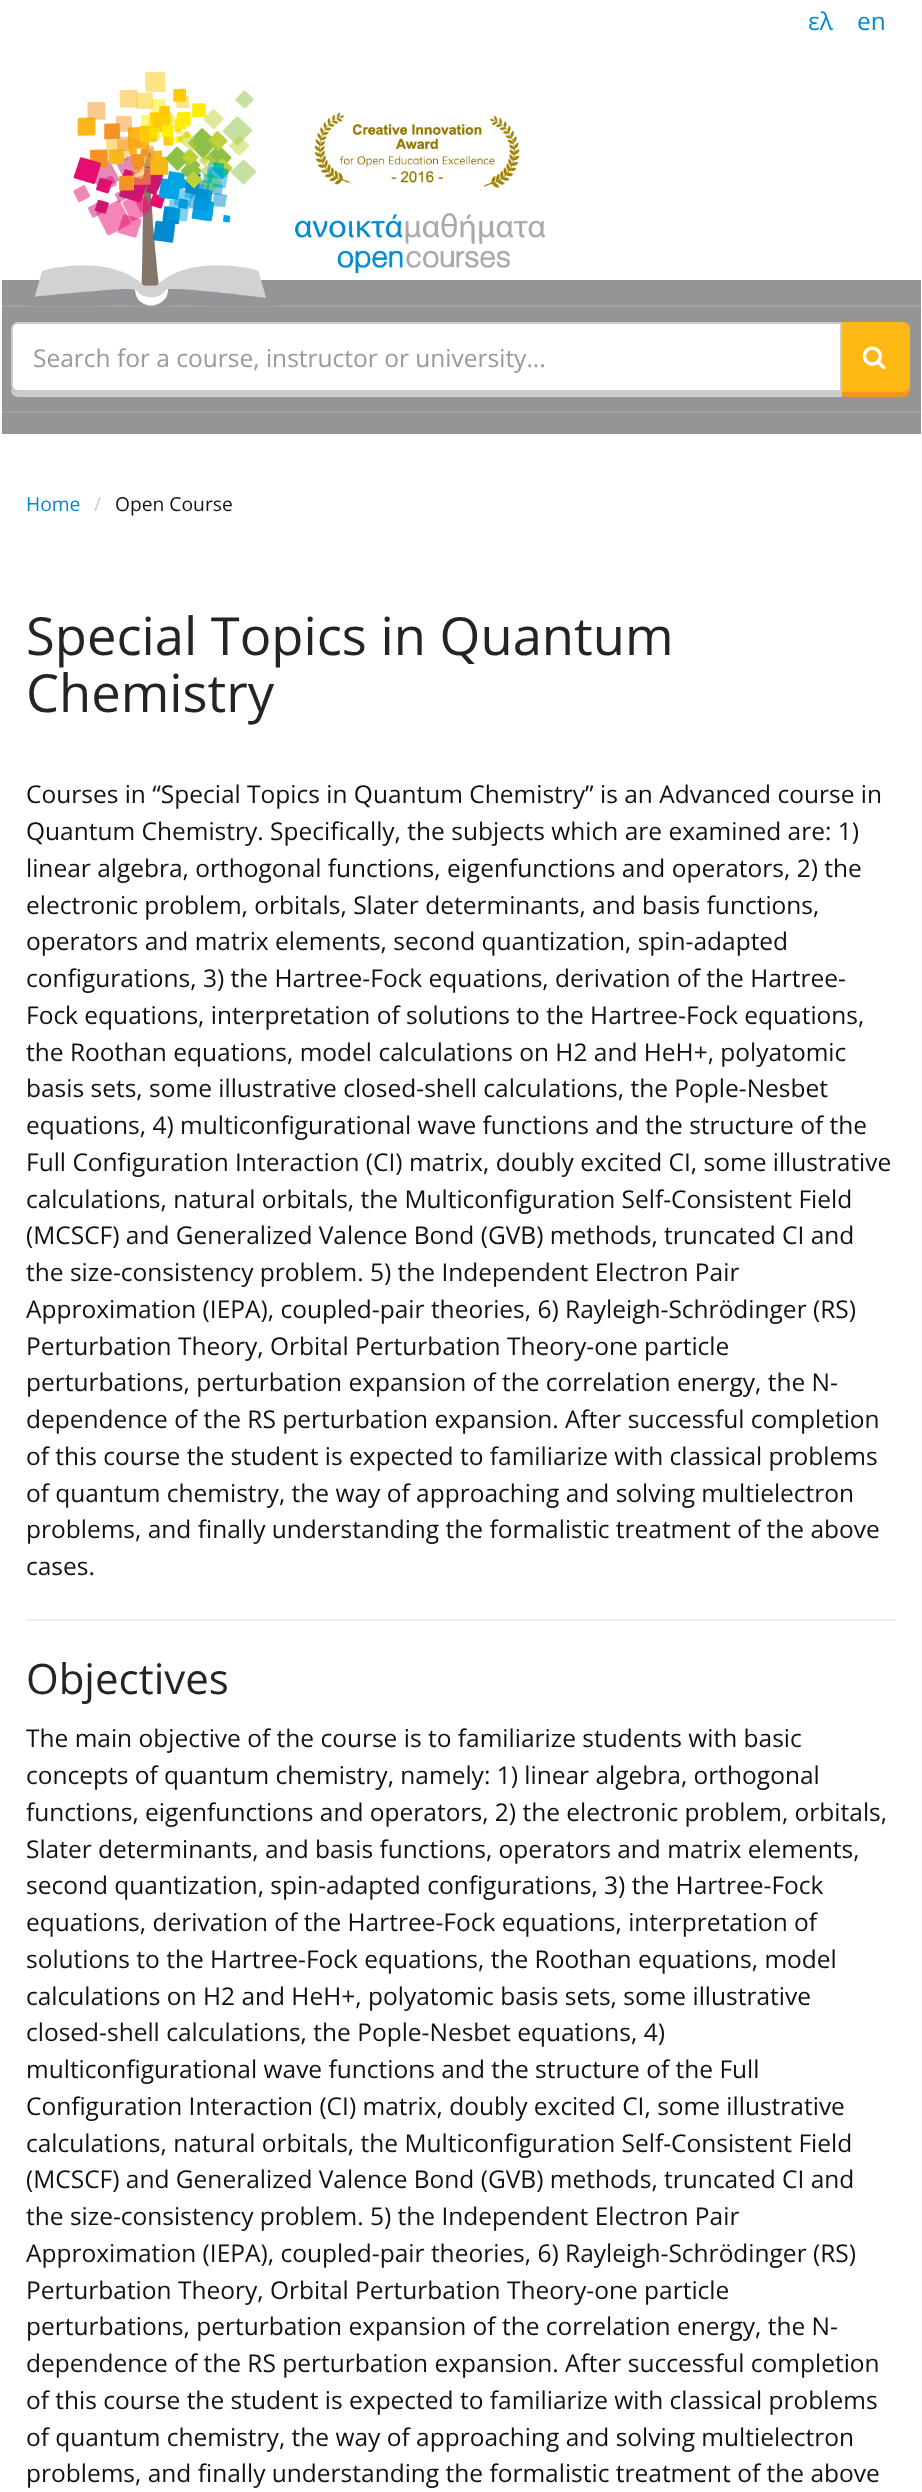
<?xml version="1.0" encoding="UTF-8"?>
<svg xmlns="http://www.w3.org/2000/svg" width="922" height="2492">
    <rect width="100%" height="100%" fill="#FFFFFF"/>
    <text x="808" y="30" font-family="Open Sans" font-size="24.5" fill="#0089D0">ελ</text>
    <text x="857" y="30" font-family="Open Sans" font-size="24.5" fill="#0089D0">en</text>
    <rect x="2" y="280" width="919" height="154" fill="#959595"/>
    <rect x="2" y="305" width="919" height="2" fill="#A0A0A0"/>
    <image x="28" y="72" width="517" height="234" href="img_01.png"/>
    <path d="M -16 305 V 413 H 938 V 411 H -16 Z" fill="#FFFFFF" fill-opacity="0.1"/>
    <path d="M 840 392 V 397 H 903 C 907 397 910 394 910 390 V 385 C 910 389 907 392 903 392 Z" fill="#F7941E"/>
    <path d="M 840 322 H 903 C 907 322 910 325 910 329 V 385 C 910 389 907 392 903 392 H 840 Z" fill="#FDB813"/>
    <path d="M 11 388 V 390 C 11 394 14 397 18 397 H 842 V 327 V 392 H 18 C 15 392 12 390 11 388 Z" fill="#CCCCCC"/>
    <path d="M 18 323 H 841 V 391 H 18 C 14.5 391 12 388.5 12 385 V 329 C 12 325.5 14.5 323 18 323 Z" fill="#FFFFFF" stroke="#CCCCCC" stroke-width="2"/>
    <text x="33" y="367" font-family="Open Sans" font-size="24.5" fill="#999999">Search for a course, instructor or university...</text>
    <image x="862" y="346" width="24" height="24" href="img_02.png"/>
    <text x="26" y="511" font-family="Open Sans" font-size="19.25" fill="#0089D0">Home</text>
    <text x="94" y="511" font-family="Open Sans" font-size="19.25" fill="#CCCCCC">/</text>
    <text x="115" y="511" font-family="Open Sans" font-size="19.25" fill="#111111">Open Course</text>
    <text font-family="Open Sans" font-size="52.5" fill="#242424">
        <tspan x="26" y="655">Special Topics in Quantum</tspan>
        <tspan x="26" y="712">Chemistry</tspan>
    </text>
    <text font-family="Open Sans" font-size="24.5" fill="#111111">
        <tspan x="26" y="803">Courses in “Special Topics in Quantum Chemistry” is an Advanced course in</tspan>
        <tspan x="26" y="840">Quantum Chemistry. Specifically, the subjects which are examined are: 1)</tspan>
        <tspan x="26" y="877">linear algebra, orthogonal functions, eigenfunctions and operators, 2) the</tspan>
        <tspan x="26" y="914">electronic problem, orbitals, Slater determinants, and basis functions,</tspan>
        <tspan x="26" y="950">operators and matrix elements, second quantization, spin-adapted</tspan>
        <tspan x="26" y="987">configurations, 3) the Hartree-Fock equations, derivation of the Hartree-</tspan>
        <tspan x="26" y="1024">Fock equations, interpretation of solutions to the Hartree-Fock equations,</tspan>
        <tspan x="26" y="1061">the Roothan equations, model calculations on H2 and HeH+, polyatomic</tspan>
        <tspan x="26" y="1097">basis sets, some illustrative closed-shell calculations, the Pople-Nesbet</tspan>
        <tspan x="26" y="1134">equations, 4) multiconfigurational wave functions and the structure of the</tspan>
        <tspan x="26" y="1171">Full Configuration Interaction (CI) matrix, doubly excited CI, some illustrative</tspan>
        <tspan x="26" y="1208">calculations, natural orbitals, the Multiconfiguration Self-Consistent Field</tspan>
        <tspan x="26" y="1244">(MCSCF) and Generalized Valence Bond (GVB) methods, truncated CI and</tspan>
        <tspan x="26" y="1281">the size-consistency problem. 5) the Independent Electron Pair</tspan>
        <tspan x="26" y="1318">Approximation (IEPA), coupled-pair theories, 6) Rayleigh-Schrödinger (RS)</tspan>
        <tspan x="26" y="1355">Perturbation Theory, Orbital Perturbation Theory-one particle</tspan>
        <tspan x="26" y="1391">perturbations, perturbation expansion of the correlation energy, the N-</tspan>
        <tspan x="26" y="1428">dependence of the RS perturbation expansion. After successful completion</tspan>
        <tspan x="26" y="1465">of this course the student is expected to familiarize with classical problems</tspan>
        <tspan x="26" y="1502">of quantum chemistry, the way of approaching and solving multielectron</tspan>
        <tspan x="26" y="1538">problems, and finally understanding the formalistic treatment of the above</tspan>
        <tspan x="26" y="1575">cases.</tspan>
    </text>
    <rect x="26" y="1619" width="870" height="2" fill="#EEEEEE"/>
    <text x="26" y="1694" font-family="Open Sans" font-size="42" fill="#242424">Objectives</text>
    <text font-family="Open Sans" font-size="24.5" fill="#111111">
        <tspan x="26" y="1747">The main objective of the course is to familiarize students with basic</tspan>
        <tspan x="26" y="1784">concepts of quantum chemistry, namely: 1) linear algebra, orthogonal</tspan>
        <tspan x="26" y="1821">functions, eigenfunctions and operators, 2) the electronic problem, orbitals,</tspan>
        <tspan x="26" y="1858">Slater determinants, and basis functions, operators and matrix elements,</tspan>
        <tspan x="26" y="1894">second quantization, spin-adapted configurations, 3) the Hartree-Fock</tspan>
        <tspan x="26" y="1931">equations, derivation of the Hartree-Fock equations, interpretation of</tspan>
        <tspan x="26" y="1968">solutions to the Hartree-Fock equations, the Roothan equations, model</tspan>
        <tspan x="26" y="2005">calculations on H2 and HeH+, polyatomic basis sets, some illustrative</tspan>
        <tspan x="26" y="2041">closed-shell calculations, the Pople-Nesbet equations, 4)</tspan>
        <tspan x="26" y="2078">multiconfigurational wave functions and the structure of the Full</tspan>
        <tspan x="26" y="2115">Configuration Interaction (CI) matrix, doubly excited CI, some illustrative</tspan>
        <tspan x="26" y="2152">calculations, natural orbitals, the Multiconfiguration Self-Consistent Field</tspan>
        <tspan x="26" y="2188">(MCSCF) and Generalized Valence Bond (GVB) methods, truncated CI and</tspan>
        <tspan x="26" y="2225">the size-consistency problem. 5) the Independent Electron Pair</tspan>
        <tspan x="26" y="2262">Approximation (IEPA), coupled-pair theories, 6) Rayleigh-Schrödinger (RS)</tspan>
        <tspan x="26" y="2299">Perturbation Theory, Orbital Perturbation Theory-one particle</tspan>
        <tspan x="26" y="2335">perturbations, perturbation expansion of the correlation energy, the N-</tspan>
        <tspan x="26" y="2372">dependence of the RS perturbation expansion. After successful completion</tspan>
        <tspan x="26" y="2409">of this course the student is expected to familiarize with classical problems</tspan>
        <tspan x="26" y="2446">of quantum chemistry, the way of approaching and solving multielectron</tspan>
        <tspan x="26" y="2482">problems, and finally understanding the formalistic treatment of the above</tspan>
    </text>
</svg>
